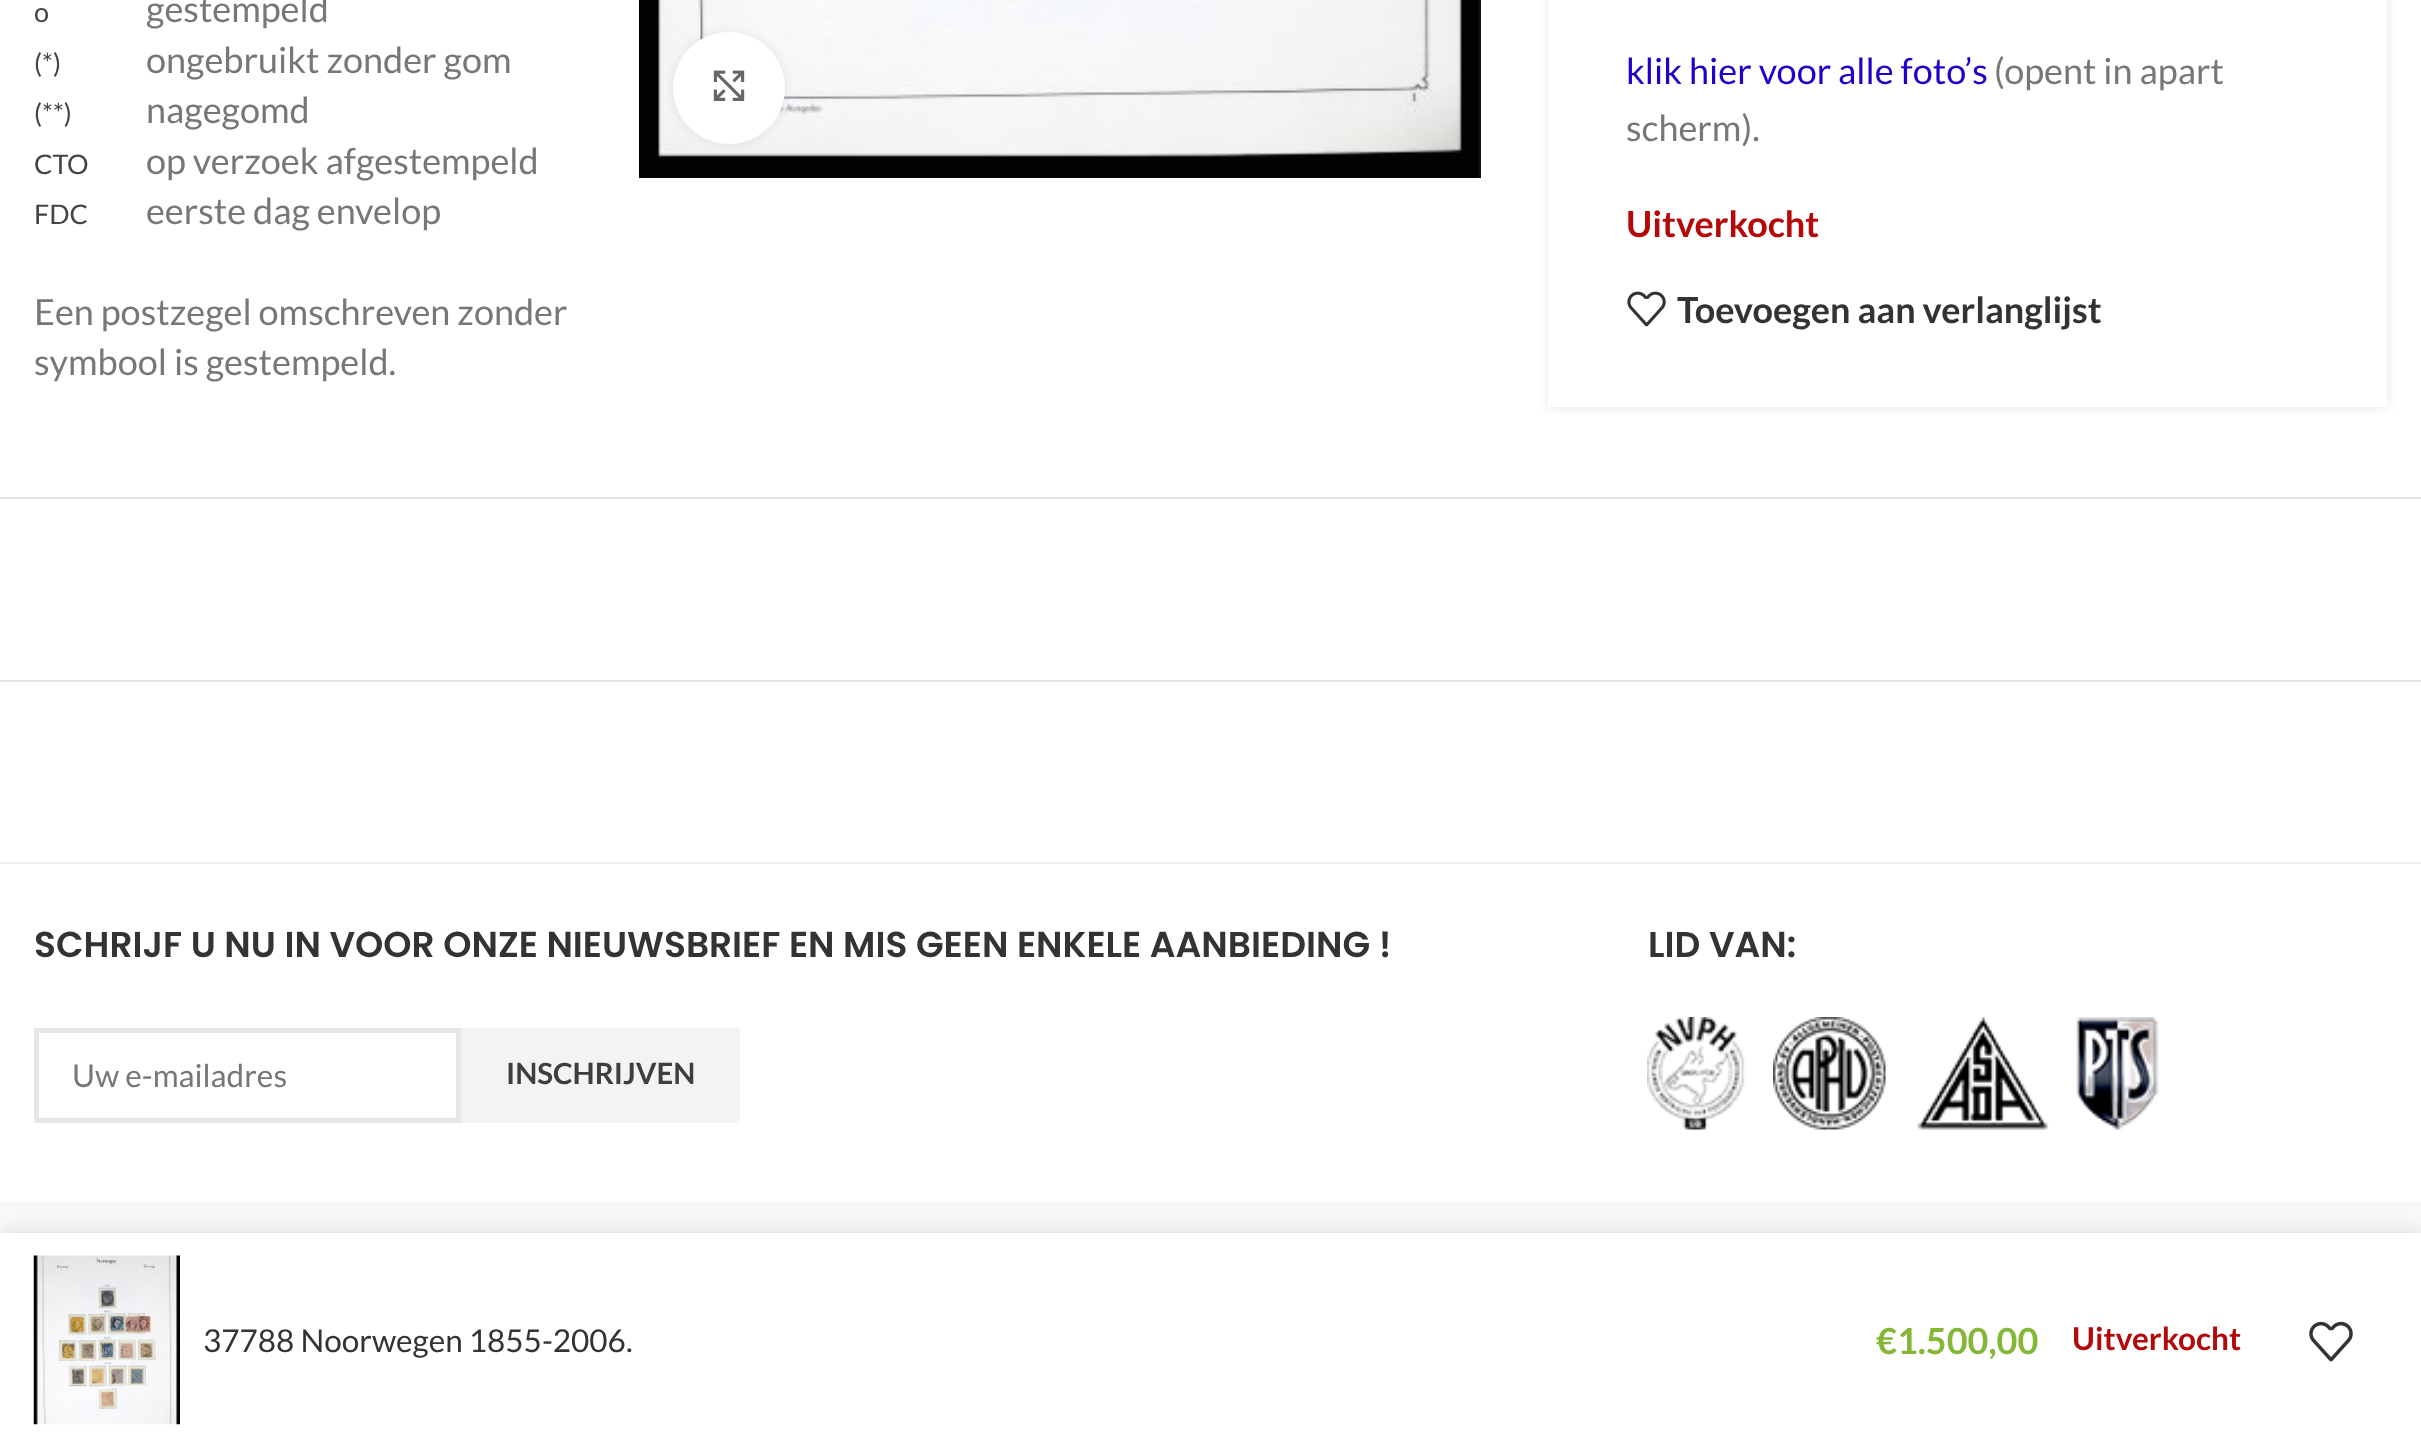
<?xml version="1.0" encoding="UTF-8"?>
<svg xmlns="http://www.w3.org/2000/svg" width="2421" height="1445">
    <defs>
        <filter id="blur1" x="-50%" y="-200%" width="200%" height="500%"><feGaussianBlur stdDeviation="5.5"/></filter>
        <clipPath id="clip1"><path d="M 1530 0 H 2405 V 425 H 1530 Z M 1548 -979 H 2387 V 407 H 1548 Z" clip-rule="evenodd"/></clipPath>
        <filter id="blur2" x="-50%" y="-200%" width="200%" height="500%"><feGaussianBlur stdDeviation="10"/></filter>
    </defs>
    <rect width="100%" height="100%" fill="#FFFFFF"/>
    <text x="34" y="22" font-family="Lato" font-size="27" fill="#444444">o</text>
    <text x="146" y="22" font-family="Lato" font-size="36" fill="#777777">gestempeld</text>
    <text x="34" y="73" font-family="Lato" font-size="27" fill="#444444">(*)</text>
    <text x="146" y="73" font-family="Lato" font-size="36" fill="#777777">ongebruikt zonder gom</text>
    <text x="34" y="123" font-family="Lato" font-size="27" fill="#444444">(**)</text>
    <text x="146" y="123" font-family="Lato" font-size="36" fill="#777777">nagegomd</text>
    <text x="34" y="174" font-family="Lato" font-size="27" fill="#444444">CTO</text>
    <text x="146" y="174" font-family="Lato" font-size="36" fill="#777777">op verzoek afgestempeld</text>
    <text x="34" y="224" font-family="Lato" font-size="27" fill="#444444">FDC</text>
    <text x="146" y="224" font-family="Lato" font-size="36" fill="#777777">eerste dag envelop</text>
    <text font-family="Lato" font-size="36" fill="#777777">
        <tspan x="34" y="325">Een postzegel omschreven zonder</tspan>
        <tspan x="34" y="375">symbool is gestempeld.</tspan>
    </text>
    <image x="639" y="0" width="842" height="178" href="img_01.png"/>
    <rect x="673" y="32" width="112" height="112" rx="56" fill="#000000" fill-opacity="0.08" filter="url(#blur1)"/>
    <circle cx="729" cy="88" r="56" fill="#FFFFFF"/>
    <image x="713" y="70" width="32" height="31" href="img_02.png"/>
    <g clip-path="url(#clip1)">
        <rect x="1548" y="-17" width="839" height="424" fill="#000000" fill-opacity="0.1" filter="url(#blur1)"/>
    </g>
    <text x="1626" y="84" font-family="Lato" font-size="36" fill="#2200CC">klik hier voor alle foto’s</text>
    <text x="1994" y="84" font-family="Lato" font-size="36" fill="#777777">(opent in apart</text>
    <text x="1626" y="141" font-family="Lato" font-size="36" fill="#777777">scherm).</text>
    <text x="1626" y="237" font-family="Lato" font-size="36" font-weight="700" fill="#B50808">Uitverkocht</text>
    <image x="1627" y="291" width="39" height="36" href="img_03.png"/>
    <text x="1677" y="323" font-family="Lato" font-size="36" font-weight="700" fill="#333333">Toevoegen aan verlanglijst</text>
    <rect x="0" y="497" width="2421" height="2" fill="#E4E4E4"/>
    <rect x="0" y="680" width="2421" height="2" fill="#E4E4E4"/>
    <rect x="0" y="862" width="2421" height="2" fill="#EDEDED"/>
    <text x="34" y="957" font-family="Poppins" font-size="36" font-weight="600" fill="#333333">SCHRIJF U NU IN VOOR ONZE NIEUWSBRIEF EN MIS GEEN ENKELE AANBIEDING !</text>
    <rect x="36.5" y="1030.5" width="422" height="90" fill="none" stroke="#E6E6E6" stroke-width="5"/>
    <text x="72" y="1087" font-family="Lato" font-size="31.5" fill="#777777">Uw e-mailadres</text>
    <rect x="461" y="1028" width="279" height="95" fill="#F3F3F3"/>
    <text x="506" y="1084" font-family="Lato" font-size="29.25" font-weight="700" fill="#3E3E3E">INSCHRIJVEN</text>
    <text x="1648" y="957" font-family="Poppins" font-size="36" font-weight="600" fill="#333333">LID VAN:</text>
    <image x="1647" y="1017" width="98" height="113" href="img_04.png"/>
    <image x="1773" y="1017" width="114" height="113" href="img_05.png"/>
    <image x="1917" y="1017" width="132" height="113" href="img_06.png"/>
    <image x="2076" y="1017" width="83" height="113" href="img_07.png"/>
    <rect x="0" y="1202" width="2421" height="31" fill="#F8F8F8"/>
    <rect x="0" y="1233" width="2421" height="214" fill="#000000" fill-opacity="0.12" filter="url(#blur2)"/>
    <rect x="0" y="1233" width="2421" height="212" fill="#FFFFFF"/>
    <image x="33" y="1255" width="147" height="170" href="img_08.png"/>
    <text x="203" y="1352" font-family="Lato" font-size="31.5" fill="#333333">37788 Noorwegen 1855-2006.</text>
    <text x="1876" y="1354" font-family="Lato" font-size="36" font-weight="700" fill="#83B735">€1.500,00</text>
    <text x="2072" y="1350" font-family="Lato" font-size="31.5" font-weight="700" fill="#B50808">Uitverkocht</text>
    <image x="2309" y="1321" width="44" height="41" href="img_09.png"/>
</svg>
